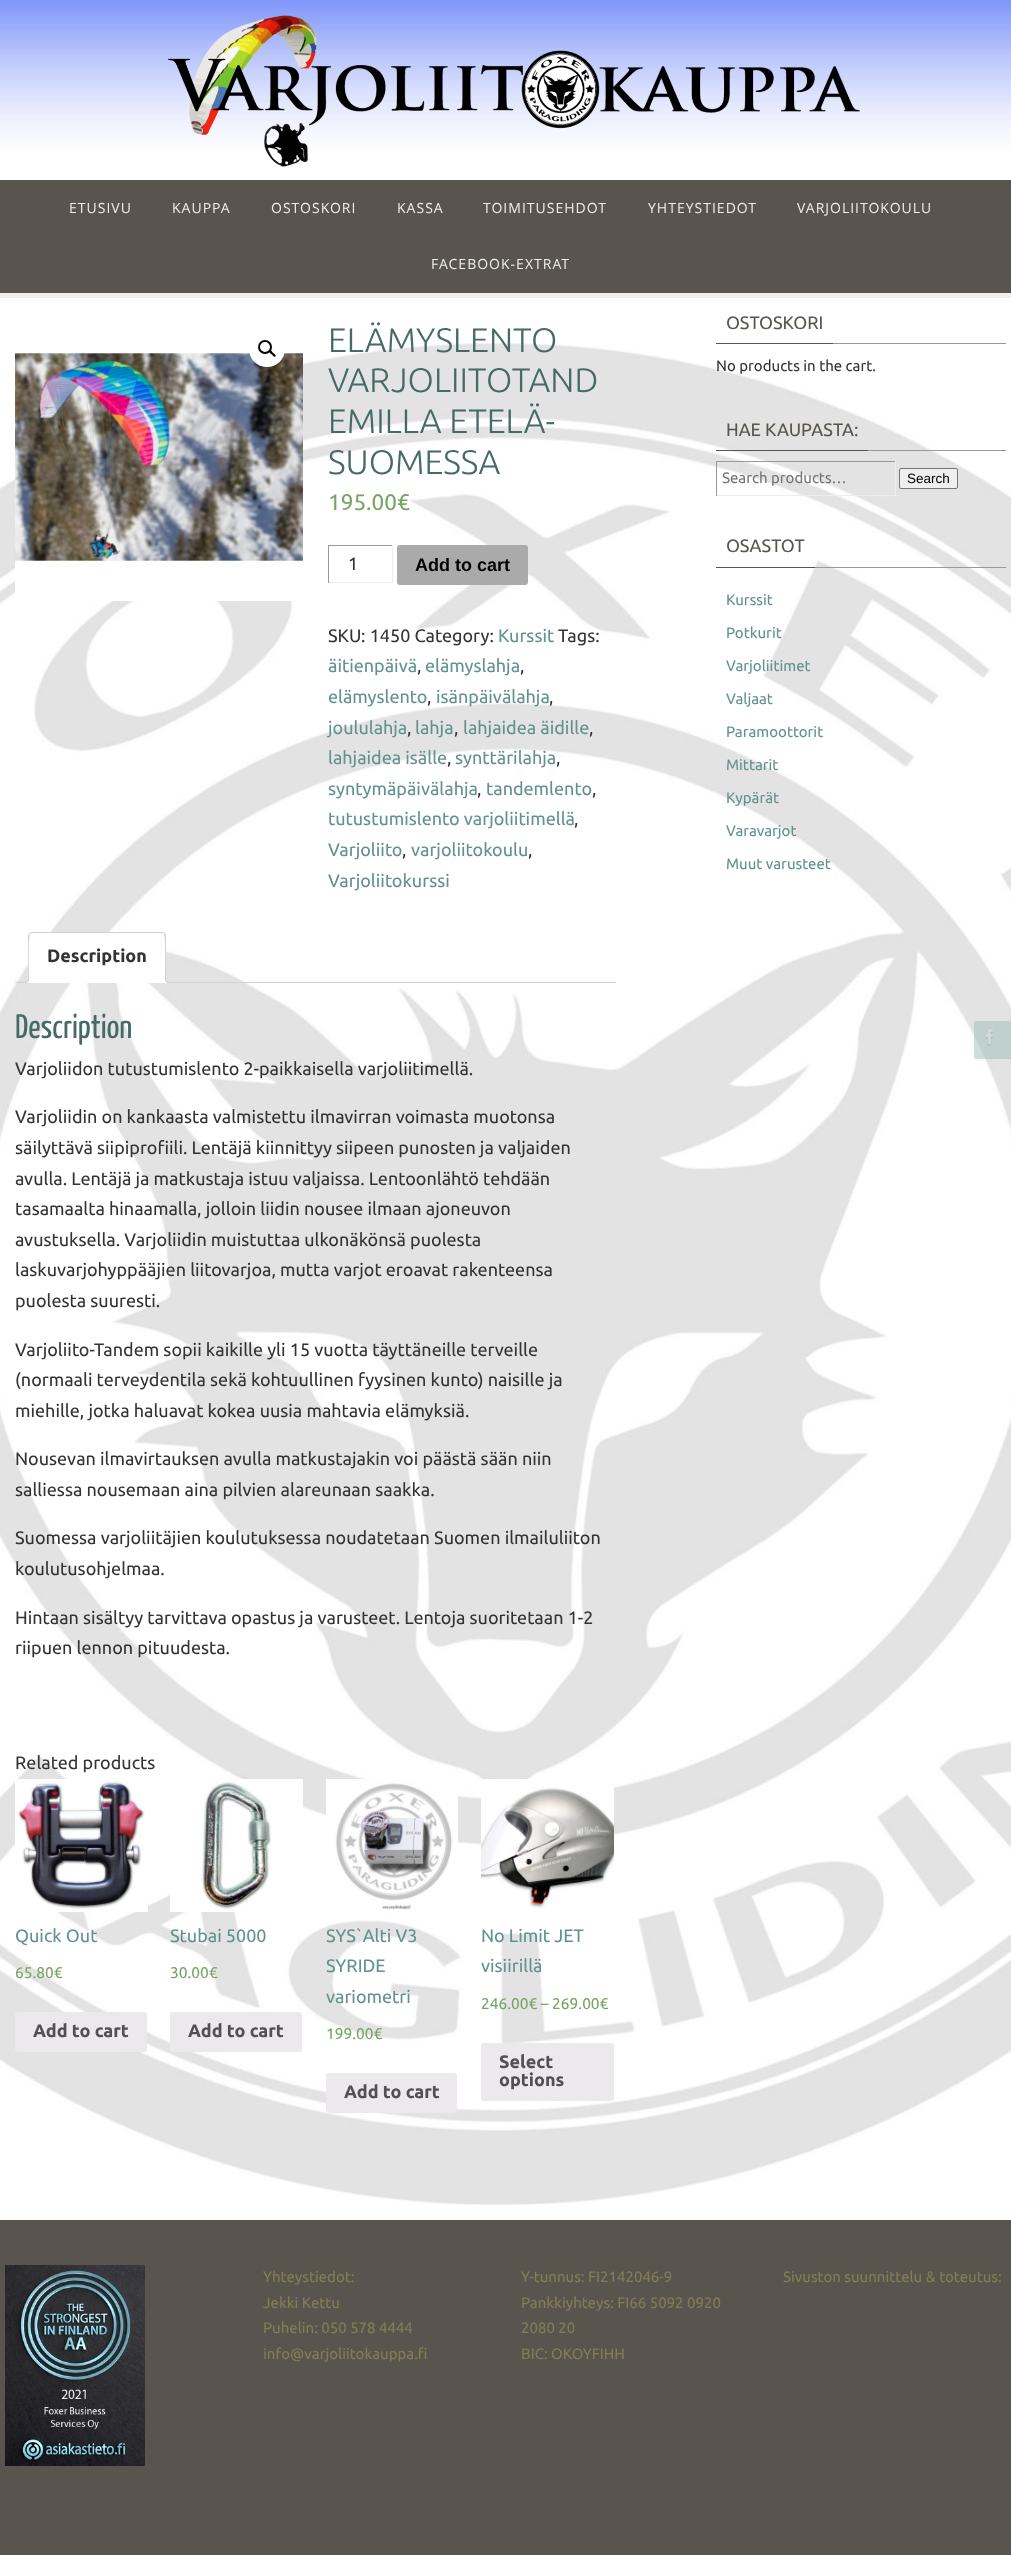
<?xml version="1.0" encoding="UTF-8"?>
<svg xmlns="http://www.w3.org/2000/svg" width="1011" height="2555">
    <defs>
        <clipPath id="clip1"><rect x="15" y="932" width="601" height="51"/></clipPath>
    </defs>
    <rect width="100%" height="100%" fill="#EFF0EC"/>
    <image x="0" y="0" width="1011" height="180" href="img_01.png"/>
    <rect x="0" y="180" width="1011" height="113" fill="#59554E"/>
    <text x="69" y="213" font-family="Open Sans" font-size="14" letter-spacing="1" fill="#EEEEEE">ETUSIVU</text>
    <text x="172" y="213" font-family="Open Sans" font-size="14" letter-spacing="1" fill="#EEEEEE">KAUPPA</text>
    <text x="271" y="213" font-family="Open Sans" font-size="14" letter-spacing="1" fill="#EEEEEE">OSTOSKORI</text>
    <text x="397" y="213" font-family="Open Sans" font-size="14" letter-spacing="1" fill="#EEEEEE">KASSA</text>
    <text x="483" y="213" font-family="Open Sans" font-size="14" letter-spacing="1" fill="#EEEEEE">TOIMITUSEHDOT</text>
    <text x="648" y="213" font-family="Open Sans" font-size="14" letter-spacing="1" fill="#EEEEEE">YHTEYSTIEDOT</text>
    <text x="797" y="213" font-family="Open Sans" font-size="14" letter-spacing="1" fill="#EEEEEE">VARJOLIITOKOULU</text>
    <text x="431" y="269" font-family="Open Sans" font-size="14" letter-spacing="1" fill="#EEEEEE">FACEBOOK-EXTRAT</text>
    <rect x="0" y="298" width="1011" height="1922" fill="#FFFFFF"/>
    <image x="0" y="343" width="1011" height="1862" href="img_02.png"/>
    <image x="15" y="352" width="288" height="249" href="img_03.png"/>
    <circle cx="267" cy="349" r="18" fill="#FFFFFF"/>
    <circle cx="265" cy="347" r="6" fill="none" stroke="#000000" stroke-width="2"/>
    <path d="M 269.5 351 C 271 349.5 272.5 352.5 273 353 C 274 353.5 276.5 355.5 275.5 356.5 C 274 357.5 272.5 355 272 354.5 C 271 354 268.5 352 269.5 351 Z" fill="#000000"/>
    <text font-family="Ubuntu" font-size="34" font-weight="300" fill="#466A66">
        <tspan x="328" y="352">ELÄMYSLENTO</tspan>
        <tspan x="328" y="392">VARJOLIITOTAND</tspan>
        <tspan x="328" y="433">EMILLA ETELÄ-</tspan>
        <tspan x="328" y="474">SUOMESSA</tspan>
    </text>
    <text x="328" y="510" font-family="Ubuntu" font-size="22.5" fill="#77A464">195.00€</text>
    <rect x="328" y="545" width="65" height="1" fill="#999999"/>
    <rect x="392" y="545" width="1" height="38" fill="#EEEEEE"/>
    <rect x="328" y="582" width="65" height="1" fill="#EEEEEE"/>
    <rect x="328" y="545" width="1" height="38" fill="#999999"/>
    <text x="348" y="570" font-family="Ubuntu" font-size="18" fill="#333333">1</text>
    <rect x="397" y="545" width="131" height="40" rx="3" fill="#AAAAAA"/>
    <text x="415" y="571" font-family="Liberation Sans" font-size="18" font-weight="700" fill="#000000">Add to cart</text>
    <text x="328" y="642" font-family="Ubuntu" font-size="18" fill="#333333">SKU: 1450 Category:</text>
    <text x="498" y="642" font-family="Ubuntu" font-size="18" fill="#61928C">Kurssit</text>
    <text x="558" y="642" font-family="Ubuntu" font-size="18" fill="#333333">Tags:</text>
    <text x="328" y="672" font-family="Ubuntu" font-size="18" fill="#61928C">äitienpäivä</text>
    <text x="417" y="672" font-family="Ubuntu" font-size="18" fill="#333333">,</text>
    <text x="425" y="672" font-family="Ubuntu" font-size="18" fill="#61928C">elämyslahja</text>
    <text x="520" y="672" font-family="Ubuntu" font-size="18" fill="#333333">,</text>
    <text x="328" y="703" font-family="Ubuntu" font-size="18" fill="#61928C">elämyslento</text>
    <text x="427" y="703" font-family="Ubuntu" font-size="18" fill="#333333">,</text>
    <text x="436" y="703" font-family="Ubuntu" font-size="18" fill="#61928C">isänpäivälahja</text>
    <text x="549" y="703" font-family="Ubuntu" font-size="18" fill="#333333">,</text>
    <text x="328" y="734" font-family="Ubuntu" font-size="18" fill="#61928C">joululahja</text>
    <text x="407" y="734" font-family="Ubuntu" font-size="18" fill="#333333">,</text>
    <text x="415" y="734" font-family="Ubuntu" font-size="18" fill="#61928C">lahja</text>
    <text x="454" y="734" font-family="Ubuntu" font-size="18" fill="#333333">,</text>
    <text x="463" y="734" font-family="Ubuntu" font-size="18" fill="#61928C">lahjaidea äidille</text>
    <text x="589" y="734" font-family="Ubuntu" font-size="18" fill="#333333">,</text>
    <text x="328" y="764" font-family="Ubuntu" font-size="18" fill="#61928C">lahjaidea isälle</text>
    <text x="447" y="764" font-family="Ubuntu" font-size="18" fill="#333333">,</text>
    <text x="455" y="764" font-family="Ubuntu" font-size="18" fill="#61928C">synttärilahja</text>
    <text x="556" y="764" font-family="Ubuntu" font-size="18" fill="#333333">,</text>
    <text x="328" y="795" font-family="Ubuntu" font-size="18" fill="#61928C">syntymäpäivälahja</text>
    <text x="477" y="795" font-family="Ubuntu" font-size="18" fill="#333333">,</text>
    <text x="486" y="795" font-family="Ubuntu" font-size="18" fill="#61928C">tandemlento</text>
    <text x="592" y="795" font-family="Ubuntu" font-size="18" fill="#333333">,</text>
    <text x="328" y="825" font-family="Ubuntu" font-size="18" fill="#61928C">tutustumislento varjoliitimellä</text>
    <text x="574" y="825" font-family="Ubuntu" font-size="18" fill="#333333">,</text>
    <text x="328" y="856" font-family="Ubuntu" font-size="18" fill="#61928C">Varjoliito</text>
    <text x="402" y="856" font-family="Ubuntu" font-size="18" fill="#333333">,</text>
    <text x="411" y="856" font-family="Ubuntu" font-size="18" fill="#61928C">varjoliitokoulu</text>
    <text x="528" y="856" font-family="Ubuntu" font-size="18" fill="#333333">,</text>
    <text x="328" y="887" font-family="Ubuntu" font-size="18" fill="#61928C">Varjoliitokurssi</text>
    <rect x="15" y="982" width="601" height="1" fill="#D3CED2"/>
    <path d="M 32 932 H 162 C 164 932 166 934 166 936 V 983 H 28 V 936 C 28 934 30 932 32 932 Z" fill="#FFFFFF"/>
    <path d="M 32 932 L 29 933 L 30 934 L 32 933 H 162 L 164 934 L 165 933 L 162 932 Z" fill="#D3CED2"/>
    <path d="M 166 983 V 935 L 165 933 L 164 934 C 166 936 165 976 165 982 Z" fill="#D3CED2"/>
    <path d="M 166 983 L 165 982 H 29 L 28 983 Z" fill="#FFFFFF"/>
    <path d="M 28 983 L 29 982 C 29 976 28 936 30 934 L 29 933 L 28 936 Z" fill="#D3CED2"/>
    <text x="47" y="962" font-family="Ubuntu" font-size="18" font-weight="700" fill="#333333">Description</text>
    <g clip-path="url(#clip1)">
        <path d="M 26 983 V 985 C 29.5 985 31 983.5 31 980 H 29 C 28.5 981.5 27.5 982.5 26 983 Z" fill="#FFFFFF"/>
    </g>
    <path d="M 24 978 H 29 C 29 981.5 27.5 983 24 983 Z M 24 978 H 28 C 28 981 27 982 24 982 Z" fill="#D3CED2" fill-rule="evenodd"/>
    <g clip-path="url(#clip1)">
        <path d="M 163 980 C 163 983.5 164.5 985 168 985 V 983 C 166.5 982.5 165.5 981.5 165 980 Z" fill="#FFFFFF"/>
    </g>
    <path d="M 165 978 H 170 V 983 C 167.5 983 165 982 165 979 Z M 166 978 H 170 V 982 C 168 982 166 981.5 166 979 Z" fill="#D3CED2" fill-rule="evenodd"/>
    <text x="15" y="1038" font-family="Yanone Kaffeesatz" font-size="34" fill="#466A66">Description</text>
    <text x="15" y="1075" font-family="Ubuntu" font-size="18" fill="#333333">Varjoliidon tutustumislento 2-paikkaisella varjoliitimellä.</text>
    <text font-family="Ubuntu" font-size="18" fill="#333333">
        <tspan x="15" y="1123">Varjoliidin on kankaasta valmistettu ilmavirran voimasta muotonsa</tspan>
        <tspan x="15" y="1154">säilyttävä siipiprofiili. Lentäjä kiinnittyy siipeen punosten ja valjaiden</tspan>
        <tspan x="15" y="1185">avulla. Lentäjä ja matkustaja istuu valjaissa. Lentoonlähtö tehdään</tspan>
        <tspan x="15" y="1215">tasamaalta hinaamalla, jolloin liidin nousee ilmaan ajoneuvon</tspan>
        <tspan x="15" y="1246">avustuksella. Varjoliidin muistuttaa ulkonäkönsä puolesta</tspan>
        <tspan x="15" y="1276">laskuvarjohyppääjien liitovarjoa, mutta varjot eroavat rakenteensa</tspan>
        <tspan x="15" y="1307">puolesta suuresti.</tspan>
    </text>
    <text font-family="Ubuntu" font-size="18" fill="#333333">
        <tspan x="15" y="1356">Varjoliito-Tandem sopii kaikille yli 15 vuotta täyttäneille terveille</tspan>
        <tspan x="15" y="1386">(normaali terveydentila sekä kohtuullinen fyysinen kunto) naisille ja</tspan>
        <tspan x="15" y="1417">miehille, jotka haluavat kokea uusia mahtavia elämyksiä.</tspan>
    </text>
    <text font-family="Ubuntu" font-size="18" fill="#333333">
        <tspan x="15" y="1465">Nousevan ilmavirtauksen avulla matkustajakin voi päästä sään niin</tspan>
        <tspan x="15" y="1496">salliessa nousemaan aina pilvien alareunaan saakka.</tspan>
    </text>
    <text font-family="Ubuntu" font-size="18" fill="#333333">
        <tspan x="15" y="1544">Suomessa varjoliitäjien koulutuksessa noudatetaan Suomen ilmailuliiton</tspan>
        <tspan x="15" y="1575">koulutusohjelmaa.</tspan>
    </text>
    <text font-family="Ubuntu" font-size="18" fill="#333333">
        <tspan x="15" y="1624">Hintaan sisältyy tarvittava opastus ja varusteet. Lentoja suoritetaan 1-2</tspan>
        <tspan x="15" y="1654">riipuen lennon pituudesta.</tspan>
    </text>
    <text x="15" y="1769" font-family="Ubuntu" font-size="18" fill="#333333">Related products</text>
    <image x="15" y="1779" width="133" height="133" href="img_04.png"/>
    <text x="15" y="1942" font-family="Ubuntu" font-size="18" fill="#61928C">Quick Out</text>
    <text x="15" y="1978" font-family="Ubuntu" font-size="15.5" fill="#77A464">65.80€</text>
    <rect x="15" y="2012" width="132" height="40" rx="3" fill="#EBE9EB"/>
    <text x="33" y="2037" font-family="Ubuntu" font-size="18" font-weight="700" fill="#515151">Add to cart</text>
    <image x="170" y="1779" width="133" height="133" href="img_05.png"/>
    <text x="170" y="1942" font-family="Ubuntu" font-size="18" fill="#61928C">Stubai 5000</text>
    <text x="170" y="1978" font-family="Ubuntu" font-size="15.5" fill="#77A464">30.00€</text>
    <rect x="170" y="2012" width="132" height="40" rx="3" fill="#EBE9EB"/>
    <text x="188" y="2037" font-family="Ubuntu" font-size="18" font-weight="700" fill="#515151">Add to cart</text>
    <image x="326" y="1779" width="132" height="131" href="img_06.png"/>
    <text font-family="Ubuntu" font-size="18" fill="#61928C">
        <tspan x="326" y="1942">SYS`Alti V3</tspan>
        <tspan x="326" y="1972">SYRIDE</tspan>
        <tspan x="326" y="2003">variometri</tspan>
    </text>
    <text x="326" y="2039" font-family="Ubuntu" font-size="15.5" fill="#77A464">199.00€</text>
    <rect x="326" y="2073" width="131" height="40" rx="3" fill="#EBE9EB"/>
    <text x="344" y="2098" font-family="Ubuntu" font-size="18" font-weight="700" fill="#515151">Add to cart</text>
    <image x="481" y="1779" width="133" height="129" href="img_07.png"/>
    <text font-family="Ubuntu" font-size="18" fill="#61928C">
        <tspan x="481" y="1942">No Limit JET</tspan>
        <tspan x="481" y="1972">visiirillä</tspan>
    </text>
    <text x="481" y="2009" font-family="Ubuntu" font-size="15.5" fill="#77A464">246.00€ – 269.00€</text>
    <rect x="481" y="2043" width="133" height="58" rx="3" fill="#EBE9EB"/>
    <text font-family="Ubuntu" font-size="18" font-weight="700" fill="#515151">
        <tspan x="499" y="2068">Select</tspan>
        <tspan x="499" y="2086">options</tspan>
    </text>
    <rect x="833" y="343" width="173" height="1" fill="#999999"/>
    <rect x="716" y="343" width="117" height="1" fill="#59554E"/>
    <text x="726" y="329" font-family="Ubuntu" font-size="18" fill="#59554E">OSTOSKORI</text>
    <text x="716" y="371" font-family="Ubuntu" font-size="15" fill="#333333">No products in the cart.</text>
    <rect x="868" y="450" width="138" height="1" fill="#999999"/>
    <rect x="716" y="450" width="152" height="1" fill="#59554E"/>
    <text x="726" y="436" font-family="Ubuntu" font-size="18" fill="#59554E">HAE KAUPASTA:</text>
    <rect x="716" y="461" width="180" height="1" fill="#999999"/>
    <rect x="895" y="461" width="1" height="35" fill="#EEEEEE"/>
    <rect x="716" y="495" width="180" height="1" fill="#EEEEEE"/>
    <rect x="716" y="461" width="1" height="35" fill="#999999"/>
    <text x="722" y="483" font-family="Ubuntu" font-size="15" fill="#757575">Search products…</text>
    <rect x="899.5" y="468.5" width="58" height="20" rx="1.5" fill="#EFEFEF" stroke="#767676"/>
    <text x="907" y="483" font-family="Liberation Sans" font-size="13.5" fill="#000000">Search</text>
    <rect x="815" y="567" width="191" height="1" fill="#999999"/>
    <rect x="716" y="567" width="99" height="1" fill="#59554E"/>
    <text x="726" y="552" font-family="Ubuntu" font-size="18" fill="#59554E">OSASTOT</text>
    <text x="726" y="605" font-family="Ubuntu" font-size="15" fill="#61928C">Kurssit</text>
    <text x="726" y="638" font-family="Ubuntu" font-size="15" fill="#61928C">Potkurit</text>
    <text x="726" y="671" font-family="Ubuntu" font-size="15" fill="#61928C">Varjoliitimet</text>
    <text x="726" y="704" font-family="Ubuntu" font-size="15" fill="#61928C">Valjaat</text>
    <text x="726" y="737" font-family="Ubuntu" font-size="15" fill="#61928C">Paramoottorit</text>
    <text x="726" y="770" font-family="Ubuntu" font-size="15" fill="#61928C">Mittarit</text>
    <text x="726" y="803" font-family="Ubuntu" font-size="15" fill="#61928C">Kypärät</text>
    <text x="726" y="836" font-family="Ubuntu" font-size="15" fill="#61928C">Varavarjot</text>
    <text x="726" y="869" font-family="Ubuntu" font-size="15" fill="#61928C">Muut varusteet</text>
    <rect x="0" y="2220" width="1011" height="335" fill="#59554E"/>
    <image x="5" y="2265" width="140" height="201" href="img_08.png"/>
    <text font-family="Ubuntu" font-size="15" fill="#857D53">
        <tspan x="263" y="2282">Yhteystiedot:</tspan>
        <tspan x="263" y="2308">Jekki Kettu</tspan>
        <tspan x="263" y="2333">Puhelin: 050 578 4444</tspan>
        <tspan x="263" y="2359">info@varjoliitokauppa.fi</tspan>
    </text>
    <text font-family="Ubuntu" font-size="15" fill="#857D53">
        <tspan x="521" y="2282">Y-tunnus: FI2142046-9</tspan>
        <tspan x="521" y="2308">Pankkiyhteys: FI66 5092 0920</tspan>
        <tspan x="521" y="2333">2080 20</tspan>
        <tspan x="521" y="2359">BIC: OKOYFIHH</tspan>
    </text>
    <text x="783" y="2282" font-family="Ubuntu" font-size="15" fill="#857D53">Sivuston suunnittelu &amp; toteutus:</text>
    <rect x="974" y="1021" width="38" height="38" rx="2" fill="#9BBDB9" fill-opacity="0.5"/>
    <image x="985" y="1029" width="8" height="17" href="img_09.png"/>
</svg>
